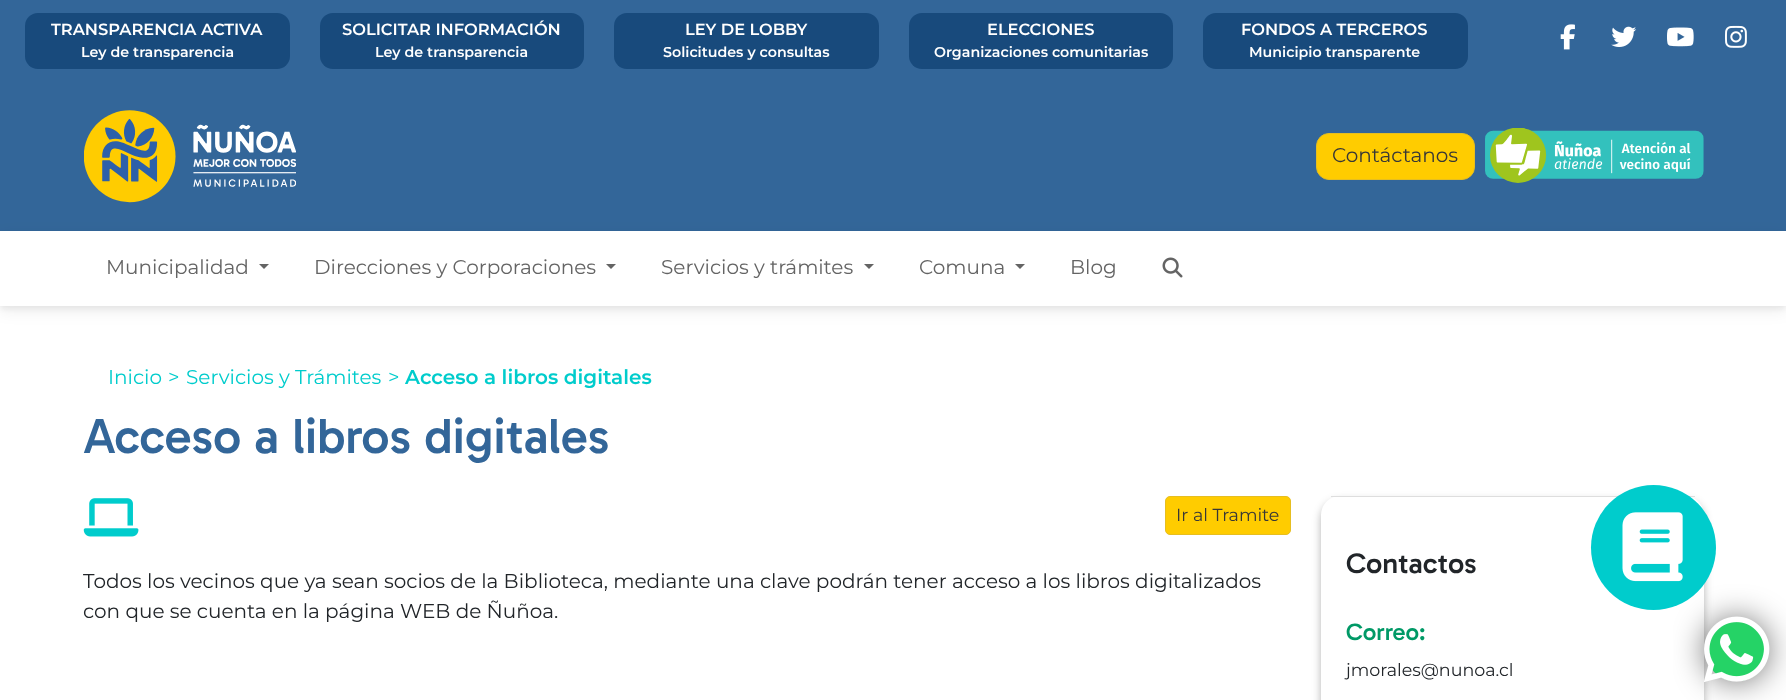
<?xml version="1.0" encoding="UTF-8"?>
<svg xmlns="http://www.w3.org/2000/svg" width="1786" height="700">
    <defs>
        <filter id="blur1" x="-50%" y="-200%" width="200%" height="500%"><feGaussianBlur stdDeviation="2.5"/></filter>
        <filter id="blur2" x="-50%" y="-200%" width="200%" height="500%"><feGaussianBlur stdDeviation="7.5"/></filter>
        <clipPath id="clip1"><path d="M 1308 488 H 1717 V 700 H 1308 Z M 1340 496 H 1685 C 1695.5 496 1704 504.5 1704 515 V 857 C 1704 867.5 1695.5 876 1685 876 H 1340 C 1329.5 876 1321 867.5 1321 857 V 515 C 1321 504.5 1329.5 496 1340 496 Z" clip-rule="evenodd"/></clipPath>
        <filter id="blur3" x="-50%" y="-200%" width="200%" height="500%"><feGaussianBlur stdDeviation="4"/></filter>
        <filter id="blur4" x="-50%" y="-200%" width="200%" height="500%"><feGaussianBlur stdDeviation="16"/></filter>
    </defs>
    <rect width="100%" height="100%" fill="#FFFFFF"/>
    <rect x="0" y="0" width="1786" height="231" fill="#336699"/>
    <rect x="25" y="13" width="265" height="56" rx="13" fill="#184A7C"/>
    <text x="51" y="35" font-family="Montserrat" font-size="16.25" font-weight="600" fill="#FFFFFF">TRANSPARENCIA ACTIVA</text>
    <text x="81" y="57" font-family="Montserrat" font-size="14.25" font-weight="600" fill="#FFFFFF">Ley de transparencia</text>
    <rect x="320" y="13" width="264" height="56" rx="13" fill="#184A7C"/>
    <text x="342" y="35" font-family="Montserrat" font-size="16.25" font-weight="600" fill="#FFFFFF">SOLICITAR INFORMACIÓN</text>
    <text x="375" y="57" font-family="Montserrat" font-size="14.25" font-weight="600" fill="#FFFFFF">Ley de transparencia</text>
    <rect x="614" y="13" width="265" height="56" rx="13" fill="#184A7C"/>
    <text x="685" y="35" font-family="Montserrat" font-size="16.25" font-weight="600" fill="#FFFFFF">LEY DE LOBBY</text>
    <text x="663" y="57" font-family="Montserrat" font-size="14.25" font-weight="600" fill="#FFFFFF">Solicitudes y consultas</text>
    <rect x="909" y="13" width="264" height="56" rx="13" fill="#184A7C"/>
    <text x="987" y="35" font-family="Montserrat" font-size="16.25" font-weight="600" fill="#FFFFFF">ELECCIONES</text>
    <text x="934" y="57" font-family="Montserrat" font-size="14.25" font-weight="600" fill="#FFFFFF">Organizaciones comunitarias</text>
    <rect x="1203" y="13" width="265" height="56" rx="13" fill="#184A7C"/>
    <text x="1241" y="35" font-family="Montserrat" font-size="16.25" font-weight="600" fill="#FFFFFF">FONDOS A TERCEROS</text>
    <text x="1249" y="57" font-family="Montserrat" font-size="14.25" font-weight="600" fill="#FFFFFF">Municipio transparente</text>
    <image x="1560" y="24" width="15" height="26" href="img_01.png"/>
    <image x="1611" y="26" width="26" height="21" href="img_02.png"/>
    <image x="1667" y="27" width="27" height="20" href="img_03.png"/>
    <image x="1725" y="25" width="22" height="23" href="img_04.png"/>
    <image x="84" y="110" width="212" height="93" href="img_05.png"/>
    <rect x="1316.5" y="133.5" width="158" height="46" rx="12.5" fill="#FFCC00" stroke="#E6BE21"/>
    <text x="1332" y="162" font-family="Montserrat" font-size="20" fill="#373737">Contáctanos</text>
    <image x="1485" y="128" width="219" height="55" href="img_06.png"/>
    <rect x="0" y="234" width="1786" height="75" fill="#000000" fill-opacity="0.05" filter="url(#blur1)"/>
    <rect x="0" y="236" width="1786" height="75" fill="#000000" fill-opacity="0.07" filter="url(#blur2)"/>
    <rect x="0" y="231" width="1786" height="75" fill="#FFFFFF"/>
    <text x="106" y="274" font-family="Montserrat" font-size="20" fill="#646464">Municipalidad</text>
    <path d="M 259 264 H 269 L 264 269 Z" fill="#646464"/>
    <text x="314" y="274" font-family="Montserrat" font-size="20" fill="#646464">Direcciones y Corporaciones</text>
    <path d="M 606 264 H 616 L 611 269 Z" fill="#646464"/>
    <text x="661" y="274" font-family="Montserrat" font-size="20" fill="#646464">Servicios y trámites</text>
    <path d="M 864 264 H 874 L 869 269 Z" fill="#646464"/>
    <text x="919" y="274" font-family="Montserrat" font-size="20" fill="#646464">Comuna</text>
    <path d="M 1015 264 H 1025 L 1020 269 Z" fill="#646464"/>
    <text x="1070" y="274" font-family="Montserrat" font-size="20" fill="#646464">Blog</text>
    <image x="1162" y="257" width="21" height="21" href="img_07.png"/>
    <text x="108" y="384" font-family="Montserrat" font-size="20" fill="#00CCCC">Inicio</text>
    <text x="168" y="384" font-family="Montserrat" font-size="20" fill="#00CCCC">&gt;</text>
    <text x="186" y="384" font-family="Montserrat" font-size="20" fill="#00CCCC">Servicios y Trámites</text>
    <text x="388" y="384" font-family="Montserrat" font-size="20" fill="#00CCCC">&gt;</text>
    <text x="405" y="384" font-family="Montserrat" font-size="20" font-weight="600" fill="#00CCCC">Acceso a libros digitales</text>
    <text x="83" y="453" font-family="Gabarito" font-size="50" font-weight="500" fill="#336699">Acceso a libros digitales</text>
    <image x="83" y="498" width="56" height="39" href="img_08.png"/>
    <rect x="1165.5" y="496.5" width="125" height="38" rx="4.5" fill="#FFCC00" stroke="#E6BE21"/>
    <text x="1176" y="521" font-family="Montserrat" font-size="17.5" fill="#373737">Ir al Tramite</text>
    <text font-family="Montserrat" font-size="20" fill="#212529">
        <tspan x="83" y="588">Todos los vecinos que ya sean socios de la Biblioteca, mediante una clave podrán tener acceso a los libros digitalizados</tspan>
        <tspan x="83" y="618">con que se cuenta en la página WEB de Ñuñoa.</tspan>
    </text>
    <g clip-path="url(#clip1)">
        <rect x="1321" y="501" width="383" height="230" rx="19" fill="#000000" fill-opacity="0.3" filter="url(#blur3)"/>
    </g>
    <rect x="1331" y="496" width="364" height="1" fill="#DEDEDE"/>
    <text x="1346" y="573" font-family="Gabarito" font-size="28.75" font-weight="500" fill="#212529">Contactos</text>
    <circle cx="1653.5" cy="547.5" r="62.5" fill="#00CCCC"/>
    <image x="1622" y="512" width="61" height="70" href="img_09.png"/>
    <text x="1346" y="640" font-family="Gabarito" font-size="24" font-weight="500" fill="#009966">Correo:</text>
    <text x="1346" y="676" font-family="Montserrat" font-size="17.5" fill="#212529">jmorales@nunoa.cl</text>
    <rect x="1705" y="619" width="63" height="62" rx="31" fill="#000000" fill-opacity="0.6" filter="url(#blur4)"/>
    <rect x="1705" y="619" width="63" height="62" rx="31" fill="#25D366"/>
    <image x="1704" y="616" width="66" height="66" href="img_10.png"/>
</svg>
